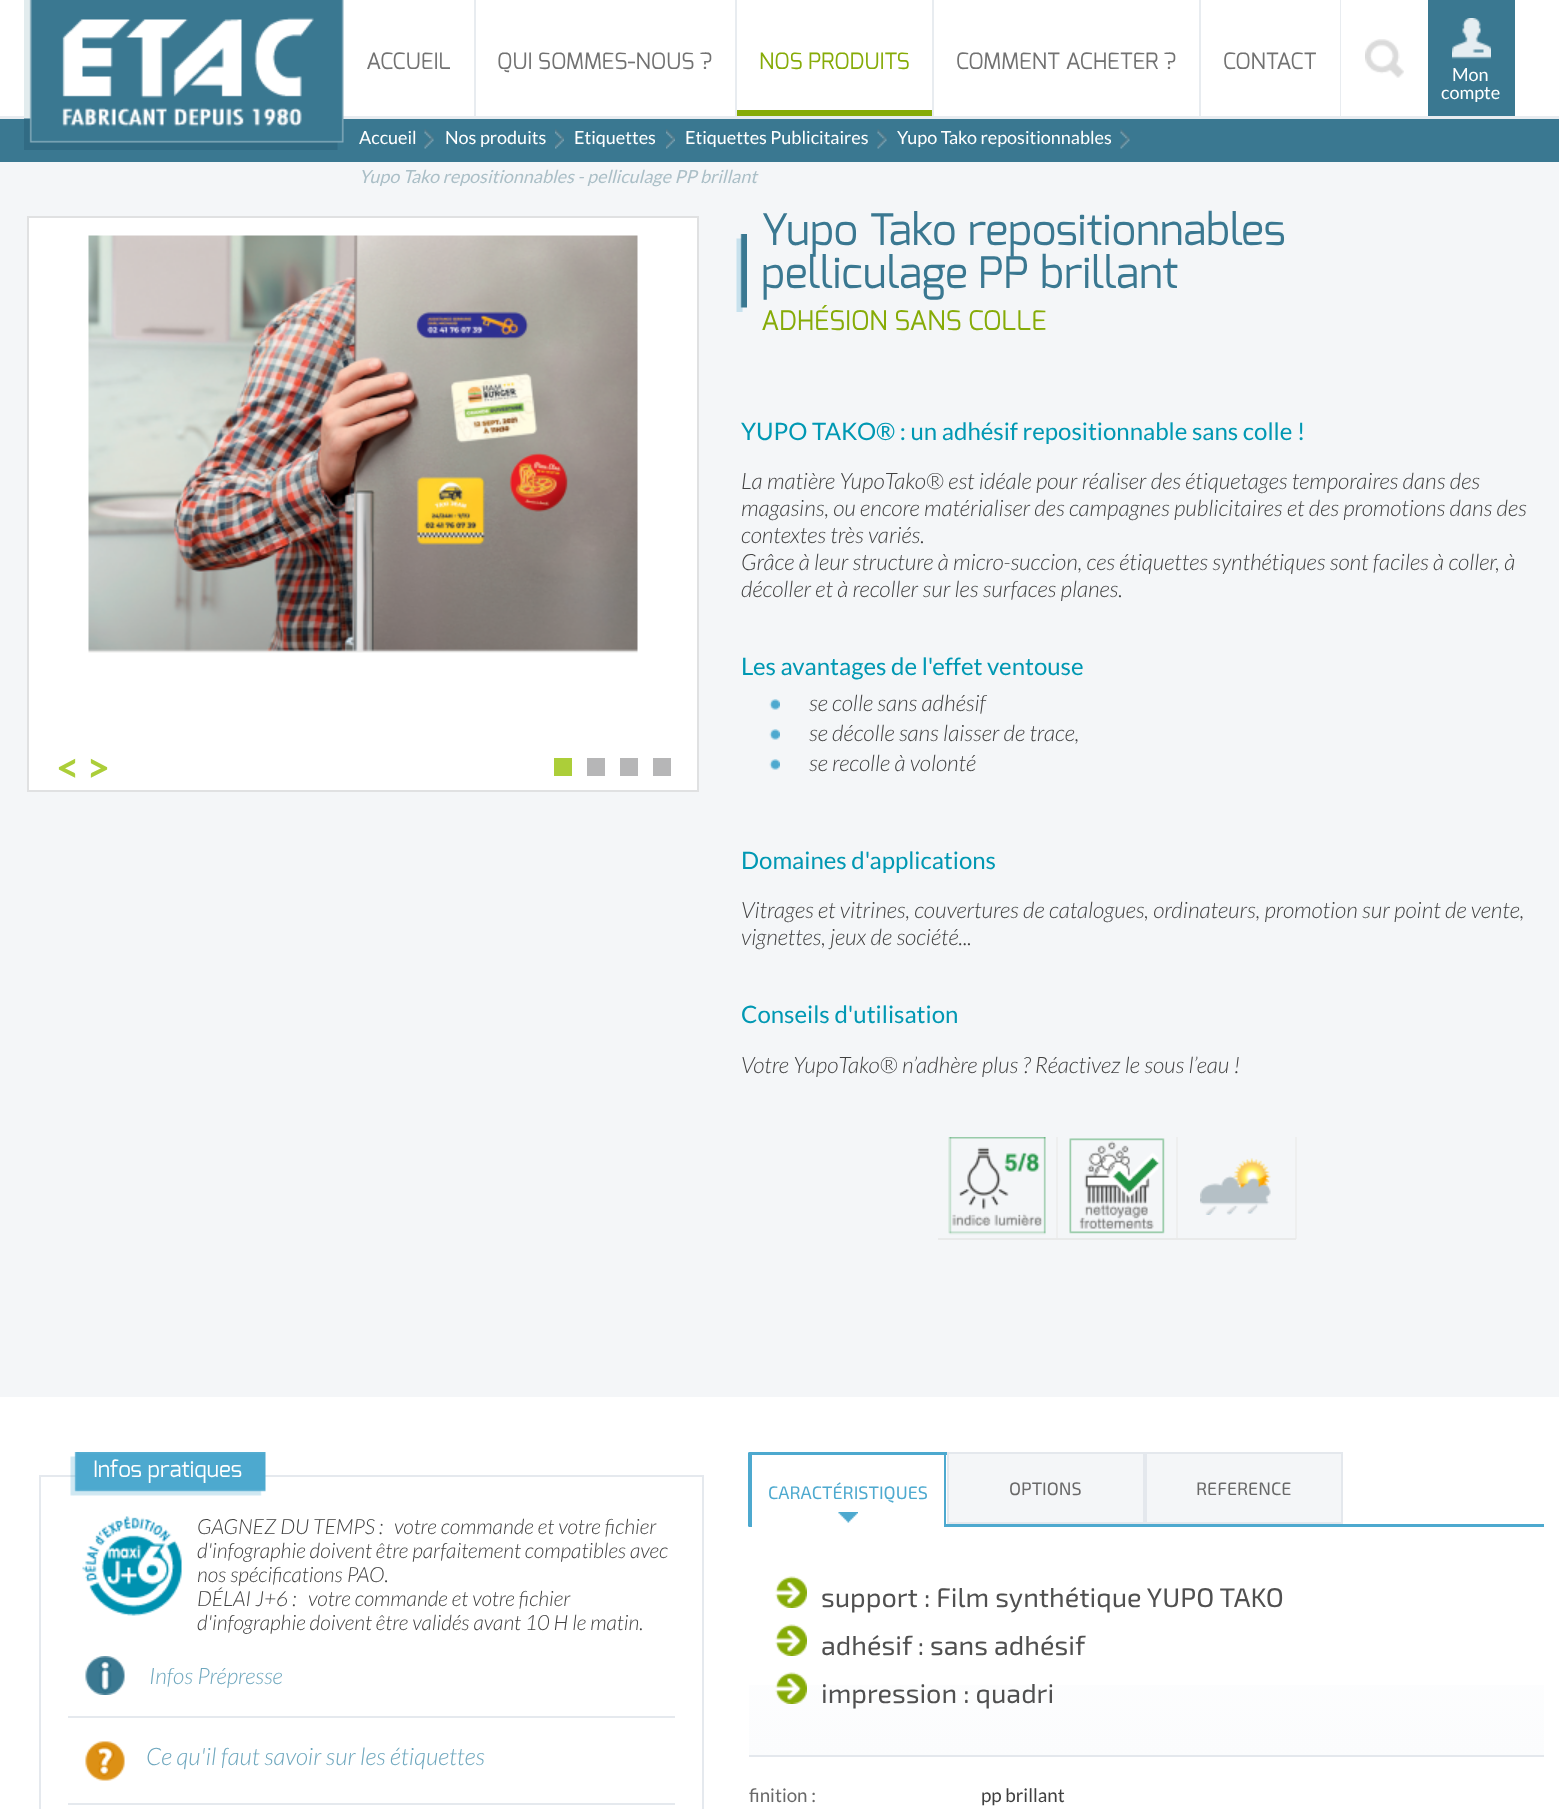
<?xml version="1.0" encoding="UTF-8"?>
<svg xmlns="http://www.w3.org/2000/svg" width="1559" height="1809">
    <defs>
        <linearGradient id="g1" gradientUnits="userSpaceOnUse" x1="1146" y1="1569" x2="1146" y2="1755"><stop offset="0" stop-color="#FFFFFF"/><stop offset="1" stop-color="#FBFCFD"/></linearGradient>
    </defs>
    <rect width="100%" height="100%" fill="#FFFFFF"/>
    <rect x="0" y="116" width="1559" height="3" fill="#E8ECF0"/>
    <rect x="0" y="119" width="1559" height="43" fill="#3A7891"/>
    <image x="24" y="0" width="320" height="150" href="img_01.png"/>
    <rect x="474" y="0" width="2" height="116" fill="#E8ECF0"/>
    <text x="366" y="69" font-family="Exo" font-size="22.5" fill="#727272">ACCUEIL</text>
    <rect x="735" y="0" width="2" height="116" fill="#E8ECF0"/>
    <text x="497" y="69" font-family="Exo" font-size="22.5" fill="#727272">QUI SOMMES-NOUS ?</text>
    <rect x="932" y="0" width="2" height="116" fill="#E8ECF0"/>
    <rect x="737" y="110" width="195" height="6" fill="#86AB07"/>
    <text x="759" y="69" font-family="Exo" font-size="22.5" fill="#86AB07">NOS PRODUITS</text>
    <rect x="1199" y="0" width="2" height="116" fill="#E8ECF0"/>
    <text x="956" y="69" font-family="Exo" font-size="22.5" fill="#727272">COMMENT ACHETER ?</text>
    <text x="1223" y="69" font-family="Exo" font-size="22.5" fill="#727272">CONTACT</text>
    <rect x="1340" y="0" width="2" height="117" fill="#E8ECF0"/>
    <rect x="1341" y="0" width="1" height="116" fill="#FFFFFF"/>
    <image x="1365" y="39" width="39" height="39" href="img_02.png"/>
    <rect x="1428" y="0" width="87" height="116" fill="#3A7891"/>
    <image x="1452" y="18" width="39" height="41" href="img_03.png"/>
    <text x="1452" y="81" font-family="Lato" font-size="18" fill="#FFFFFF">Mon</text>
    <text x="1441" y="99" font-family="Lato" font-size="18" fill="#FFFFFF">compte</text>
    <image x="424" y="129" width="10" height="20" href="img_04.png"/>
    <text x="359" y="144" font-family="Lato" font-size="18" fill="#FFFFFF">Accueil</text>
    <image x="555" y="129" width="9" height="20" href="img_05.png"/>
    <text x="445" y="144" font-family="Lato" font-size="18" fill="#FFFFFF">Nos produits</text>
    <image x="666" y="129" width="9" height="20" href="img_05.png"/>
    <text x="574" y="144" font-family="Lato" font-size="18" fill="#FFFFFF">Etiquettes</text>
    <image x="877" y="129" width="10" height="20" href="img_06.png"/>
    <text x="685" y="144" font-family="Lato" font-size="18" fill="#FFFFFF">Etiquettes Publicitaires</text>
    <image x="1120" y="129" width="10" height="20" href="img_04.png"/>
    <text x="897" y="144" font-family="Lato" font-size="18" fill="#FFFFFF">Yupo Tako repositionnables</text>
    <rect x="0" y="162" width="1559" height="1235" fill="#F4F6F8"/>
    <text x="359" y="183" font-family="Lato" font-size="18" font-style="italic" fill="#ABBFC7">Yupo Tako repositionnables - pelliculage PP brillant</text>
    <rect x="28" y="217" width="670" height="574" fill="#FFFFFF" stroke="#E0E1E2" stroke-width="2"/>
    <image x="88" y="235" width="550" height="418" href="img_07.png"/>
    <text x="56" y="782" font-family="Lato" font-size="39" font-weight="700" fill="#ACCE39">&lt; &gt;</text>
    <rect x="554" y="758" width="18" height="18" fill="#ACCE39"/>
    <rect x="587" y="758" width="18" height="18" fill="#B6B6B7"/>
    <rect x="620" y="758" width="18" height="18" fill="#B6B6B7"/>
    <rect x="653" y="758" width="18" height="18" fill="#B6B6B7"/>
    <image x="736" y="234" width="11" height="78" href="img_08.png"/>
    <text font-family="Exo" font-size="43.5" fill="#3A7891">
        <tspan x="761" y="245">Yupo Tako repositionnables</tspan>
        <tspan x="761" y="288">pelliculage PP brillant</tspan>
    </text>
    <text x="761" y="330" font-family="Exo" font-size="27" fill="#86AB07">ADHÉSION SANS COLLE</text>
    <text x="741" y="440" font-family="Lato" font-size="24" fill="#0098B3">YUPO TAKO® : un adhésif repositionnable sans colle !</text>
    <text font-family="Lato" font-size="22.5" font-weight="300" font-style="italic" fill="#404040">
        <tspan x="741" y="489">La matière YupoTako® est idéale pour réaliser des étiquetages temporaires dans des</tspan>
        <tspan x="741" y="516">magasins, ou encore matérialiser des campagnes publicitaires et des promotions dans des</tspan>
        <tspan x="741" y="543">contextes très variés.</tspan>
        <tspan x="741" y="570">Grâce à leur structure à micro-succion, ces étiquettes synthétiques sont faciles à coller, à</tspan>
        <tspan x="741" y="597">décoller et à recoller sur les surfaces planes.</tspan>
    </text>
    <text x="741" y="675" font-family="Lato" font-size="24" fill="#0098B3">Les avantages de l'effet ventouse</text>
    <image x="769" y="699" width="11" height="11" href="img_09.png"/>
    <text x="809" y="711" font-family="Lato" font-size="22.5" font-weight="300" font-style="italic" fill="#404040">se colle sans adhésif</text>
    <image x="769" y="729" width="11" height="11" href="img_09.png"/>
    <text x="809" y="741" font-family="Lato" font-size="22.5" font-weight="300" font-style="italic" fill="#404040">se décolle sans laisser de trace,</text>
    <image x="769" y="759" width="11" height="11" href="img_09.png"/>
    <text x="809" y="771" font-family="Lato" font-size="22.5" font-weight="300" font-style="italic" fill="#404040">se recolle à volonté</text>
    <text x="741" y="869" font-family="Lato" font-size="24" fill="#0098B3">Domaines d'applications</text>
    <text font-family="Lato" font-size="22.5" font-weight="300" font-style="italic" fill="#404040">
        <tspan x="741" y="918">Vitrages et vitrines, couvertures de catalogues, ordinateurs, promotion sur point de vente,</tspan>
        <tspan x="741" y="945">vignettes, jeux de société...</tspan>
    </text>
    <text x="741" y="1023" font-family="Lato" font-size="24" fill="#0098B3">Conseils d'utilisation</text>
    <text x="741" y="1073" font-family="Lato" font-size="22.5" font-weight="300" font-style="italic" fill="#404040">Votre YupoTako® n’adhère plus ? Réactivez le sous l’eau !</text>
    <rect x="1295" y="1137" width="2" height="102" fill="#EEEFEF"/>
    <rect x="1176" y="1238" width="120" height="2" fill="#E9EAEA"/>
    <rect x="1176" y="1137" width="2" height="102" fill="#EEEFEF"/>
    <rect x="1056" y="1238" width="122" height="2" fill="#E9EAEA"/>
    <rect x="1056" y="1137" width="2" height="102" fill="#EEEFEF"/>
    <rect x="938" y="1238" width="120" height="2" fill="#E9EAEA"/>
    <image x="948" y="1137" width="98" height="98" href="img_10.png"/>
    <image x="1069" y="1138" width="96" height="96" href="img_11.png"/>
    <image x="1200" y="1158" width="71" height="57" href="img_12.png"/>
    <rect x="40" y="1476" width="663" height="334" fill="none" stroke="#E5E9EE" stroke-width="2"/>
    <image x="70" y="1452" width="196" height="44" href="img_13.png"/>
    <text x="93" y="1477" font-family="Exo" font-size="22.5" fill="#FFFFFF">Infos pratiques</text>
    <image x="82" y="1516" width="100" height="100" href="img_14.png"/>
    <text x="197" y="1534" font-family="Lato" font-size="21" font-weight="300" font-style="italic" fill="#404040">GAGNEZ DU TEMPS :</text>
    <text x="394" y="1534" font-family="Lato" font-size="21" font-weight="300" font-style="italic" fill="#404040">votre commande et votre fichier</text>
    <text font-family="Lato" font-size="21" font-weight="300" font-style="italic" fill="#404040">
        <tspan x="197" y="1558">d'infographie doivent être parfaitement compatibles avec</tspan>
        <tspan x="197" y="1582">nos spécifications PAO.</tspan>
        <tspan x="197" y="1606">DÉLAI J+6 :</tspan>
    </text>
    <text x="308" y="1606" font-family="Lato" font-size="21" font-weight="300" font-style="italic" fill="#404040">votre commande et votre fichier</text>
    <text x="197" y="1630" font-family="Lato" font-size="21" font-weight="300" font-style="italic" fill="#404040">d'infographie doivent être validés avant 10 H le matin.</text>
    <image x="85" y="1656" width="40" height="39" href="img_15.png"/>
    <text x="149" y="1684" font-family="Lato" font-size="22.5" font-weight="300" font-style="italic" fill="#6DA6BD">Infos Prépresse</text>
    <image x="85" y="1741" width="40" height="40" href="img_16.png"/>
    <rect x="68" y="1716" width="607" height="2" fill="#E5E9EE"/>
    <text x="146" y="1765" font-family="Lato" font-size="24" font-weight="300" font-style="italic" fill="#6DA6BD">Ce qu'il faut savoir sur les étiquettes</text>
    <rect x="68" y="1803" width="607" height="2" fill="#E5E9EE"/>
    <rect x="749" y="1524" width="795" height="3" fill="#4DA9CF"/>
    <rect x="749" y="1452" width="198" height="3" fill="#4DA9CF"/>
    <path d="M 946 1452 V 1527 L 944 1524 V 1455 Z" fill="#4DA9CF"/>
    <path d="M 748 1527 V 1452 L 752 1455 V 1524 Z" fill="#4DA9CF"/>
    <rect x="752" y="1524" width="192" height="3" fill="#FFFFFF"/>
    <image x="838" y="1512" width="20" height="11" href="img_17.png"/>
    <text x="768" y="1499" font-family="'Exo 2'" font-size="18" fill="#4DA9CF">CARACTÉRISTIQUES</text>
    <rect x="948" y="1453" width="196" height="70" fill="#F4F6F8" stroke="#E4E8ED" stroke-width="2"/>
    <text x="1009" y="1495" font-family="'Exo 2'" font-size="18" fill="#696969">OPTIONS</text>
    <rect x="1146" y="1453" width="196" height="70" fill="#F4F6F8" stroke="#E4E8ED" stroke-width="2"/>
    <text x="1196" y="1495" font-family="'Exo 2'" font-size="18" fill="#696969">REFERENCE</text>
    <rect x="749" y="1685" width="795" height="70" fill="url(#g1)"/>
    <rect x="749" y="1755" width="795" height="2" fill="#E4E8ED"/>
    <image x="775" y="1576" width="32" height="32" href="img_18.png"/>
    <text x="821" y="1607" font-family="'Exo 2'" font-size="27" fill="#505050">support : Film synthétique YUPO TAKO</text>
    <image x="775" y="1624" width="32" height="32" href="img_19.png"/>
    <text x="821" y="1655" font-family="'Exo 2'" font-size="27" fill="#505050">adhésif : sans adhésif</text>
    <image x="775" y="1672" width="32" height="32" href="img_20.png"/>
    <text x="821" y="1703" font-family="'Exo 2'" font-size="27" fill="#505050">impression : quadri</text>
    <text x="749" y="1802" font-family="Lato" font-size="18.75" fill="#696969">finition :</text>
    <text x="981" y="1802" font-family="Lato" font-size="18.75" fill="#404040">pp brillant</text>
</svg>
